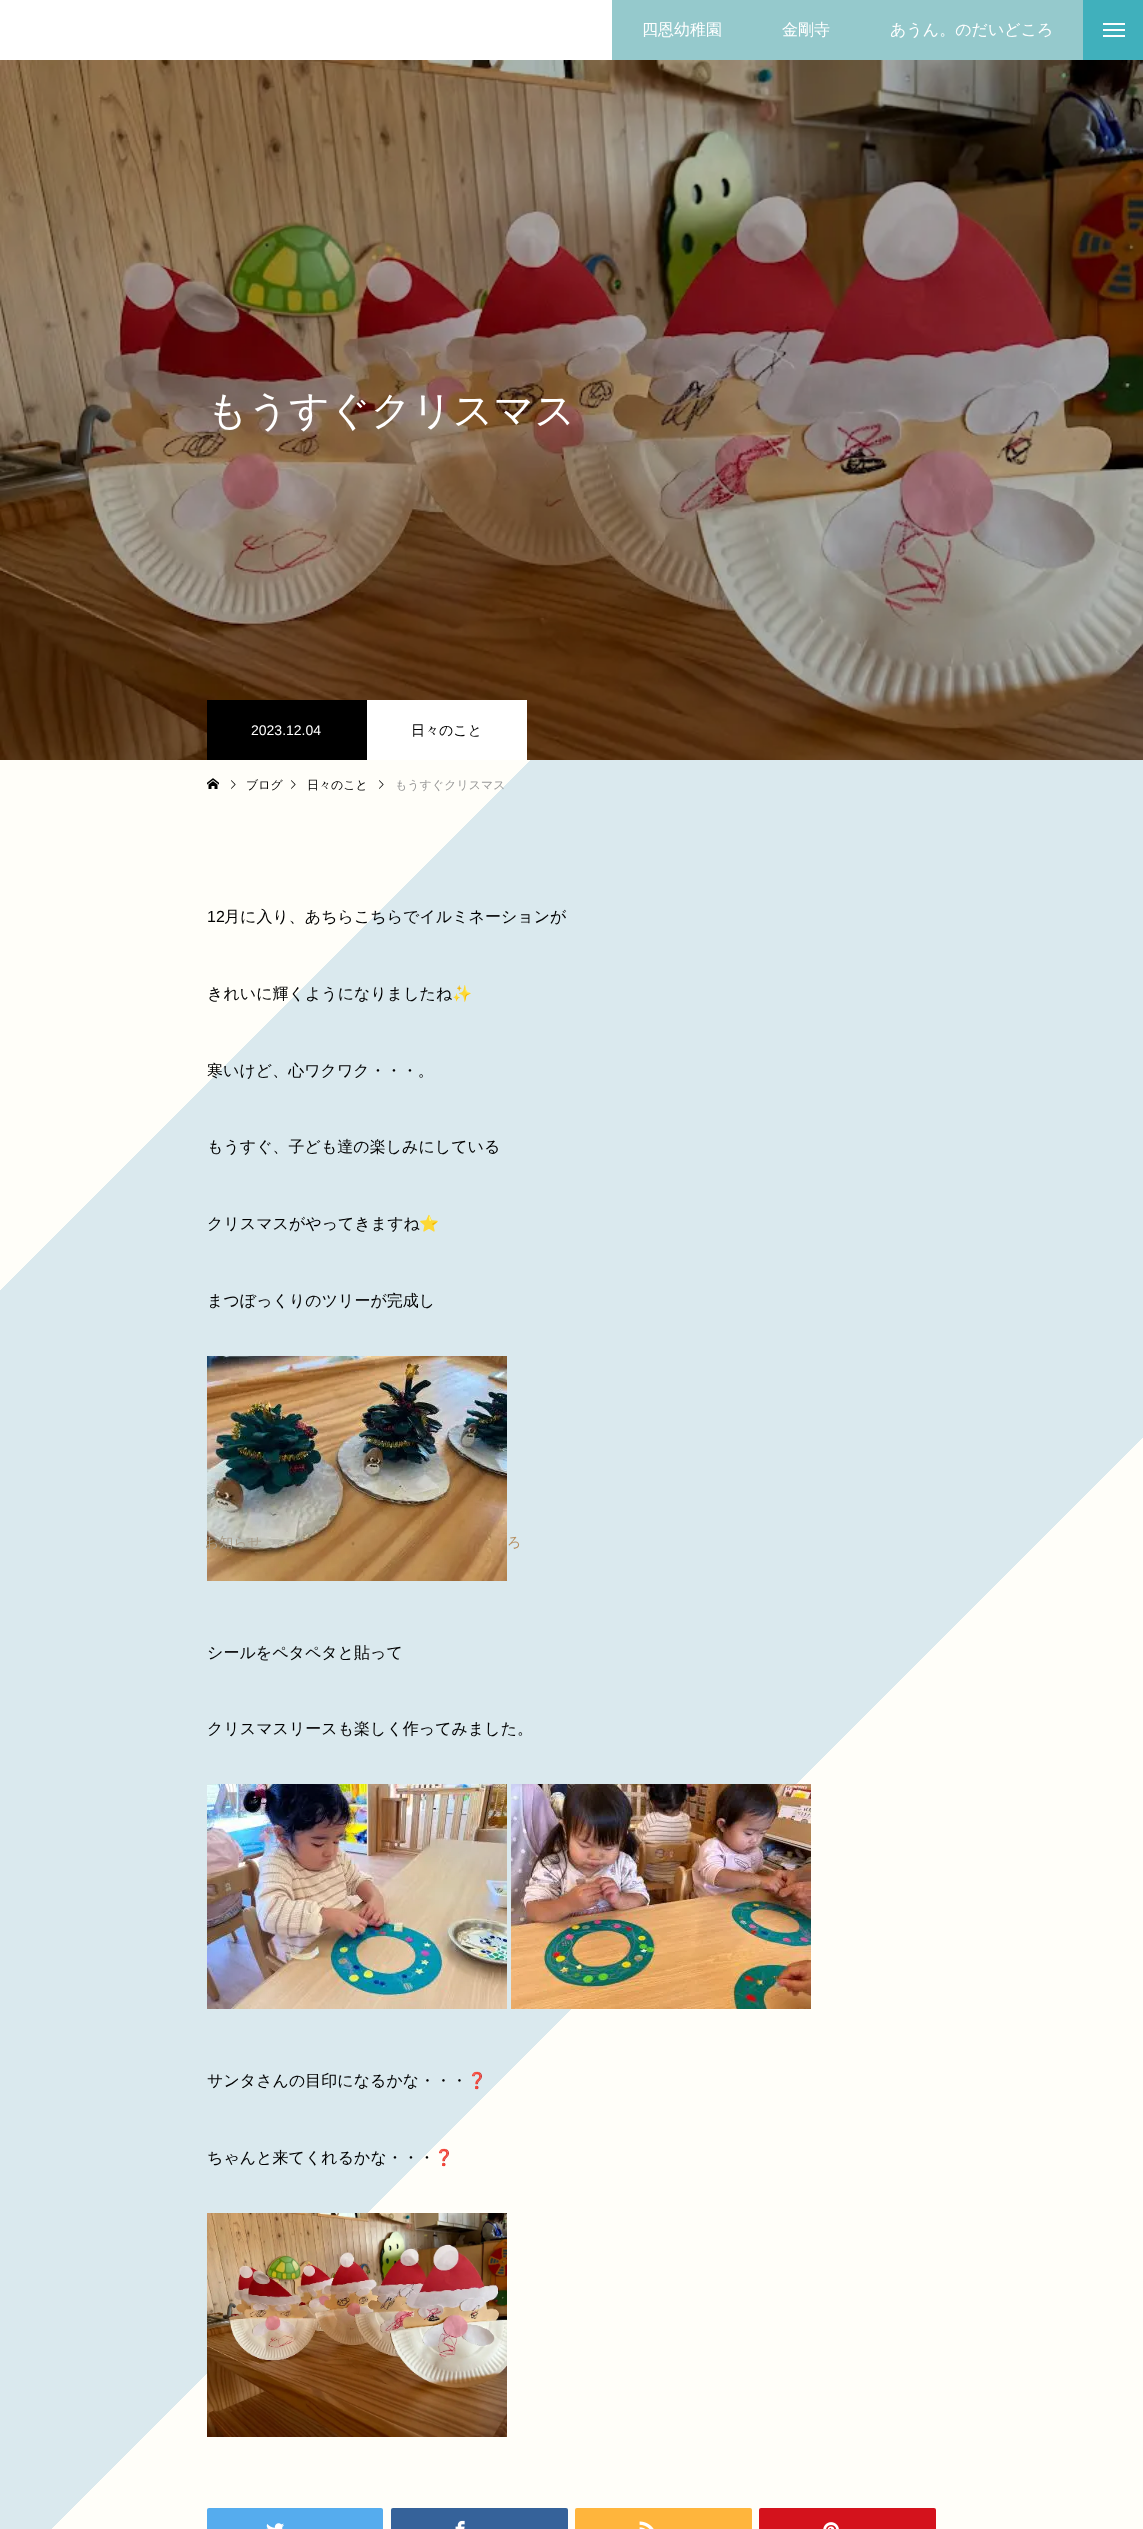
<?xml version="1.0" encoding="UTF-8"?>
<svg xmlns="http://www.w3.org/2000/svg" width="1143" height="2529">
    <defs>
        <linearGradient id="g1" gradientUnits="userSpaceOnUse" x1="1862" y1="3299" x2="-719" y2="719"><stop offset="0.25" stop-color="#DAE9EE"/><stop offset="0.25" stop-color="#FFFEF9"/><stop offset="0.5" stop-color="#FFFEF9"/><stop offset="0.5" stop-color="#DAE9EE"/><stop offset="0.75" stop-color="#DAE9EE"/><stop offset="0.75" stop-color="#FFFEF9"/><stop offset="1" stop-color="#FFFEF9"/></linearGradient>
    </defs>
    <rect width="100%" height="100%" fill="#FFFFFF"/>
    <rect x="0" y="760" width="1143" height="1769" fill="url(#g1)"/>
    <rect x="612" y="0" width="471" height="60" fill="#95C9CC"/>
    <text x="642" y="35" font-family="WenQuanYi Zen Hei" font-size="16" font-weight="500" fill="#FFFFFF">四恩幼稚園</text>
    <text x="782" y="35" font-family="WenQuanYi Zen Hei" font-size="16" font-weight="500" fill="#FFFFFF">金剛寺</text>
    <text x="890" y="35" font-family="WenQuanYi Zen Hei" font-size="16" font-weight="500" fill="#FFFFFF">あうん。のだいどころ</text>
    <rect x="1083" y="0" width="60" height="60" fill="#40B0BC"/>
    <rect x="1103" y="23" width="22" height="2" fill="#FFFFFF"/>
    <rect x="1103" y="29" width="22" height="2" fill="#FFFFFF"/>
    <rect x="1103" y="35" width="22" height="2" fill="#FFFFFF"/>
    <image x="0" y="60" width="1143" height="700" href="img_01.png"/>
    <text x="207" y="424" font-family="WenQuanYi Zen Hei" font-size="40" font-weight="500" fill="#FFFFFF">もうすぐクリスマス</text>
    <rect x="207" y="700" width="160" height="60" fill="#000000"/>
    <text x="251" y="735" font-family="Liberation Sans" font-size="14" fill="#FFFFFF">2023.12.04</text>
    <rect x="367" y="700" width="160" height="60" fill="#FFFFFF"/>
    <text x="411" y="735" font-family="WenQuanYi Zen Hei" font-size="14" font-weight="500" fill="#000000">日々のこと</text>
    <image x="207" y="778" width="12" height="11" href="img_02.png"/>
    <image x="231" y="780" width="5" height="9" href="img_03.png"/>
    <text x="246" y="789" font-family="WenQuanYi Zen Hei" font-size="12" font-weight="500" fill="#000000">ブログ</text>
    <image x="291" y="780" width="5" height="9" href="img_03.png"/>
    <text x="307" y="789" font-family="WenQuanYi Zen Hei" font-size="12" font-weight="500" fill="#000000">日々のこと</text>
    <image x="379" y="780" width="5" height="9" href="img_03.png"/>
    <text x="395" y="789" font-family="WenQuanYi Zen Hei" font-size="12" font-weight="500" fill="#999999">もうすぐクリスマス</text>
    <text x="207" y="922" font-family="Liberation Sans" font-size="16" fill="#000000">12</text>
    <text x="224" y="922" font-family="WenQuanYi Zen Hei" font-size="16" font-weight="500" fill="#000000">月に入り、あちらこちらでイルミネーションが</text>
    <text x="207" y="999" font-family="WenQuanYi Zen Hei" font-size="16" font-weight="500" fill="#000000">きれいに輝くようになりましたね</text>
    <text x="452" y="999" font-family="Noto Color Emoji" font-size="16" fill="#000000">✨</text>
    <text x="207" y="1076" font-family="WenQuanYi Zen Hei" font-size="16" font-weight="500" fill="#000000">寒いけど、心ワクワク・・・。</text>
    <text x="207" y="1152" font-family="WenQuanYi Zen Hei" font-size="16" font-weight="500" fill="#000000">もうすぐ、子ども達の楽しみにしている</text>
    <text x="207" y="1229" font-family="WenQuanYi Zen Hei" font-size="16" font-weight="500" fill="#000000">クリスマスがやってきますね</text>
    <text x="419" y="1229" font-family="Noto Color Emoji" font-size="16" fill="#000000">⭐</text>
    <text x="207" y="1306" font-family="WenQuanYi Zen Hei" font-size="16" font-weight="500" fill="#000000">まつぼっくりのツリーが完成し</text>
    <image x="207" y="1356" width="300" height="225" href="img_04.png"/>
    <text x="207" y="1658" font-family="WenQuanYi Zen Hei" font-size="16" font-weight="500" fill="#000000">シールをペタペタと貼って</text>
    <text x="207" y="1734" font-family="WenQuanYi Zen Hei" font-size="16" font-weight="500" fill="#000000">クリスマスリースも楽しく作ってみました。</text>
    <image x="207" y="1784" width="300" height="225" href="img_05.png"/>
    <image x="511" y="1784" width="300" height="225" href="img_06.png"/>
    <text x="207" y="2086" font-family="WenQuanYi Zen Hei" font-size="16" font-weight="500" fill="#000000">サンタさんの目印になるかな・・・</text>
    <text x="467" y="2086" font-family="Noto Color Emoji" font-size="16" fill="#000000">❓</text>
    <text x="207" y="2163" font-family="WenQuanYi Zen Hei" font-size="16" font-weight="500" fill="#000000">ちゃんと来てくれるかな・・・</text>
    <text x="434" y="2163" font-family="Noto Color Emoji" font-size="16" fill="#000000">❓</text>
    <image x="207" y="2213" width="300" height="224" href="img_07.png"/>
    <rect x="207" y="2508" width="176" height="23" rx="2" fill="#55ACEE"/>
    <image x="266" y="2523" width="18" height="6" href="img_08.png"/>
    <rect x="391" y="2508" width="177" height="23" rx="2" fill="#35629A"/>
    <image x="455" y="2520" width="10" height="9" href="img_09.png"/>
    <rect x="575" y="2508" width="177" height="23" rx="2" fill="#FFB53C"/>
    <image x="639" y="2521" width="15" height="8" href="img_10.png"/>
    <rect x="759" y="2508" width="177" height="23" rx="2" fill="#D4121C"/>
    <image x="823" y="2522" width="16" height="7" href="img_11.png"/>
    <text x="205" y="1547" font-family="WenQuanYi Zen Hei" font-size="14" font-weight="500" fill="#A79C8A">お知らせ</text>
    <text x="507" y="1547" font-family="WenQuanYi Zen Hei" font-size="14" font-weight="500" fill="#B58D5F">ろ</text>
</svg>
